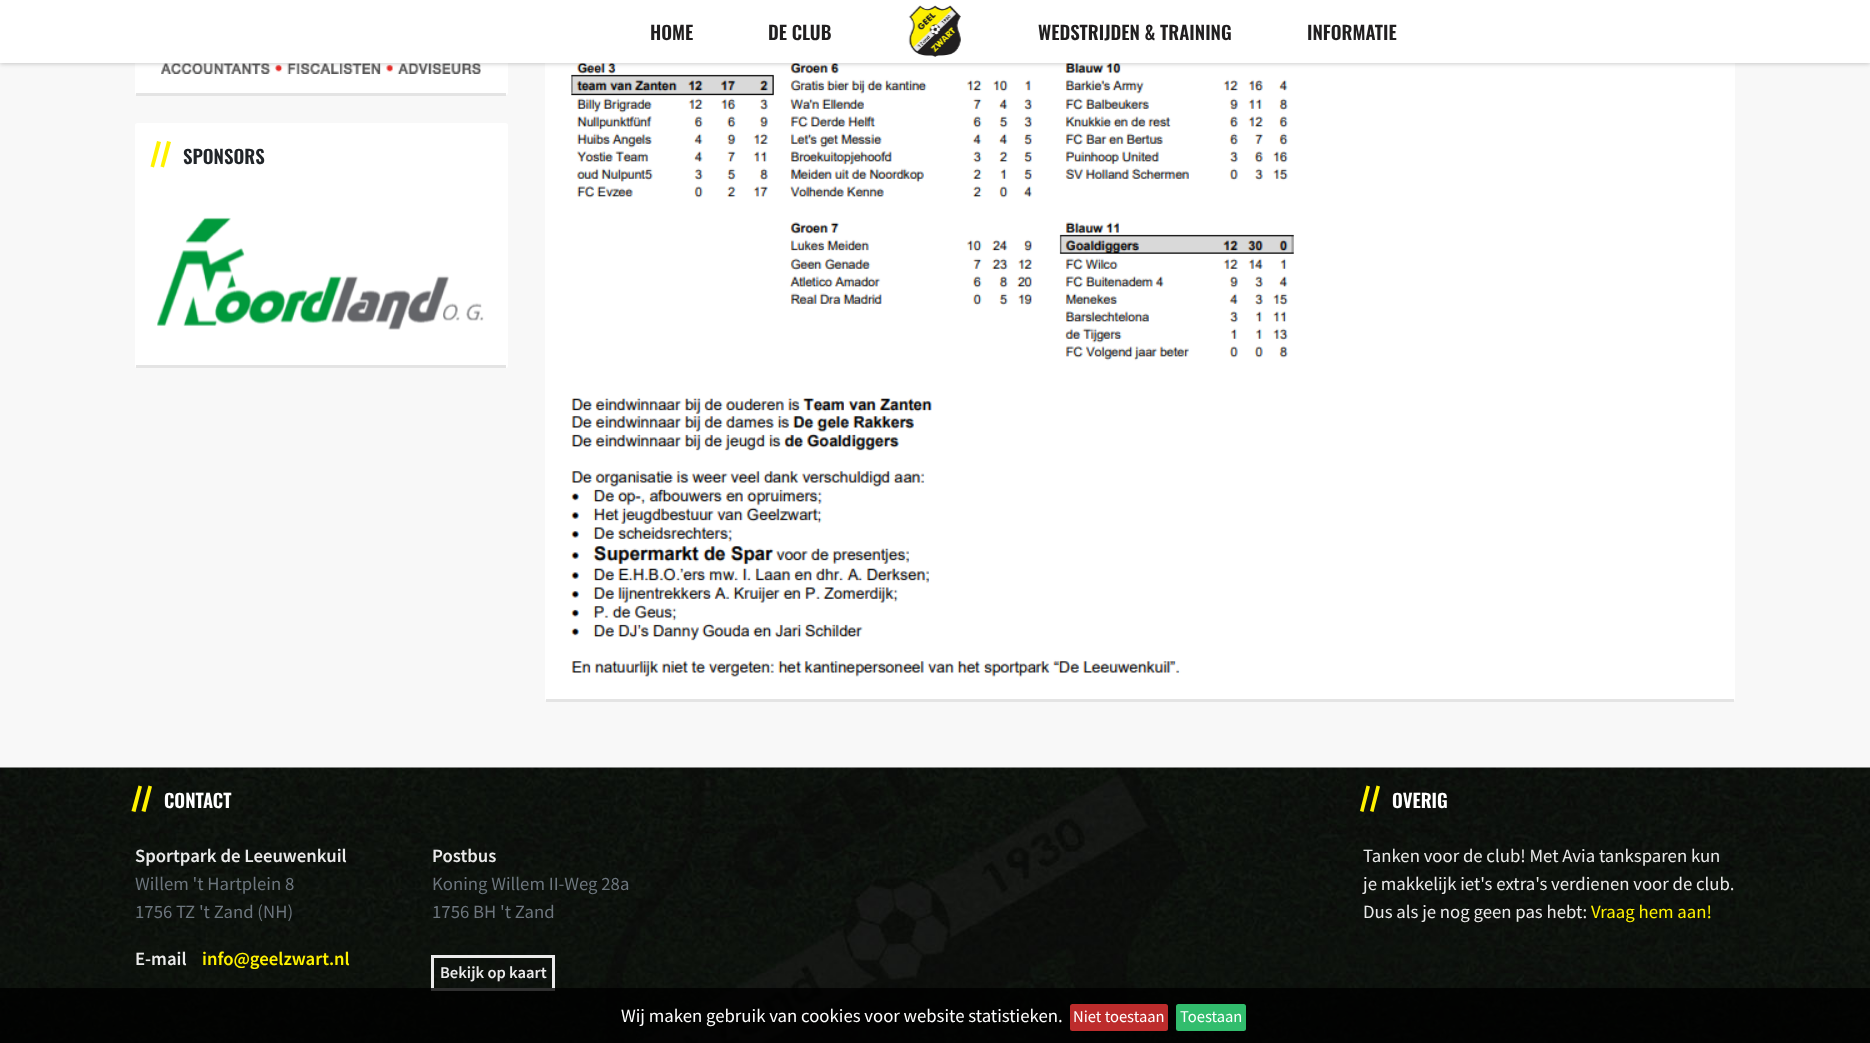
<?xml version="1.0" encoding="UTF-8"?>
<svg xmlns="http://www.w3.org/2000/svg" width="1870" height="1043">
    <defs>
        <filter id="blur1" x="-50%" y="-200%" width="200%" height="500%"><feGaussianBlur stdDeviation="2"/></filter>
    </defs>
    <rect width="100%" height="100%" fill="#F8F8F8"/>
    <rect x="135" y="-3" width="373" height="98" rx="2.5" fill="#FFFFFF"/>
    <image x="161" y="63" width="320" height="11" href="img_02.png"/>
    <rect x="545" y="-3" width="1190" height="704" rx="2.5" fill="#FFFFFF"/>
    <image x="571" y="63" width="723" height="614" href="img_04.png"/>
    <rect x="0" y="1" width="1870" height="63" fill="#000000" fill-opacity="0.2" filter="url(#blur1)"/>
    <rect x="0" y="0" width="1870" height="63" fill="#FFFFFF"/>
    <image x="908" y="5" width="53" height="52" href="img_01.png"/>
    <text x="650" y="40" font-family="Oswald" font-size="18.75" font-weight="600" fill="#211F20">HOME</text>
    <text x="768" y="40" font-family="Oswald" font-size="18.75" font-weight="600" fill="#211F20">DE CLUB</text>
    <text x="1038" y="40" font-family="Oswald" font-size="18.75" font-weight="600" fill="#211F20">WEDSTRIJDEN &amp; TRAINING</text>
    <text x="1307" y="40" font-family="Oswald" font-size="18.75" font-weight="600" fill="#211F20">INFORMATIE</text>
    <rect x="136" y="93" width="370" height="3" fill="#E4E4E4"/>
    <rect x="135" y="123" width="373" height="245" rx="2.5" fill="#FFFFFF"/>
    <rect x="136" y="365" width="370" height="3" fill="#E4E4E4"/>
    <path d="M 157 141 L 161 142 L 154 167.5 L 150.5 166.5 Z" fill="#FFF200"/>
    <path d="M 167 141 L 171 142 L 164 167.5 L 160.5 166.5 Z" fill="#FFF200"/>
    <text x="183" y="164" font-family="Oswald" font-size="18.75" font-weight="600" fill="#212529">SPONSORS</text>
    <image x="157" y="217" width="327" height="113" href="img_03.png"/>
    <rect x="546" y="699" width="1188" height="3" fill="#E4E4E4"/>
    <image x="0" y="767" width="1870" height="276" href="img_05.png"/>
    <path d="M 138.5 785.5 L 142 786.5 L 135.5 812 L 131.5 811 Z" fill="#FFF200"/>
    <path d="M 148.5 785.5 L 152 786.5 L 145.5 812 L 141.5 811 Z" fill="#FFF200"/>
    <text x="164" y="808" font-family="Oswald" font-size="18.75" font-weight="600" fill="#FFFFFF">CONTACT</text>
    <text x="135" y="862" font-family="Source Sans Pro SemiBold" font-size="18.75" font-weight="600" fill="#EAEAEA">Sportpark de Leeuwenkuil</text>
    <text font-family="Source Sans Pro" font-size="18.75" fill="#6C757D">
        <tspan x="135" y="890">Willem 't Hartplein 8</tspan>
        <tspan x="135" y="918">1756 TZ 't Zand (NH)</tspan>
    </text>
    <text x="135" y="965" font-family="Source Sans Pro SemiBold" font-size="18.75" font-weight="600" fill="#EAEAEA">E-mail</text>
    <text x="202" y="965" font-family="Source Sans Pro SemiBold" font-size="18.75" font-weight="600" fill="#FFF200">info@geelzwart.nl</text>
    <text x="432" y="862" font-family="Source Sans Pro SemiBold" font-size="18.75" font-weight="600" fill="#EAEAEA">Postbus</text>
    <text font-family="Source Sans Pro" font-size="18.75" fill="#6C757D">
        <tspan x="432" y="890">Koning Willem II-Weg 28a</tspan>
        <tspan x="432" y="918">1756 BH 't Zand</tspan>
    </text>
    <rect x="432.5" y="956.5" width="121" height="33" fill="none" stroke="#EAEAEA" stroke-width="3"/>
    <text x="440" y="978" font-family="Source Sans Pro SemiBold" font-size="16.5" font-weight="600" fill="#EAEAEA">Bekijk op kaart</text>
    <path d="M 1366.5 785.5 L 1370 786.5 L 1363.5 812 L 1360 811 Z M 1376.5 785.5 L 1380 786.5 L 1373.5 812 L 1370 811 Z" fill="#FFF200"/>
    <text x="1392" y="808" font-family="Oswald" font-size="18.75" font-weight="600" fill="#FFFFFF">OVERIG</text>
    <text font-family="Source Sans Pro" font-size="18.75" fill="#EAEAEA">
        <tspan x="1363" y="862">Tanken voor de club! Met Avia tanksparen kun</tspan>
        <tspan x="1363" y="890">je makkelijk iet's extra's verdienen voor de club.</tspan>
        <tspan x="1363" y="918">Dus als je nog geen pas hebt:</tspan>
    </text>
    <text x="1591" y="918" font-family="Source Sans Pro" font-size="18.75" fill="#FFF200">Vraag hem aan!</text>
    <rect x="0" y="988" width="1870" height="55" fill="#000000" fill-opacity="0.8"/>
    <text x="621" y="1022" font-family="Source Sans Pro" font-size="18.75" fill="#FFFFFF">Wij maken gebruik van cookies voor website statistieken.</text>
    <rect x="1070" y="1004" width="98" height="27" rx="2.5" fill="#BD2C2C"/>
    <text x="1073" y="1022" font-family="Source Sans Pro" font-size="16.5" fill="#FFFFFF">Niet toestaan</text>
    <rect x="1176" y="1004" width="70" height="27" rx="2.5" fill="#32BD6D"/>
    <text x="1180" y="1022" font-family="Source Sans Pro" font-size="16.5" fill="#FFFFFF">Toestaan</text>
</svg>
